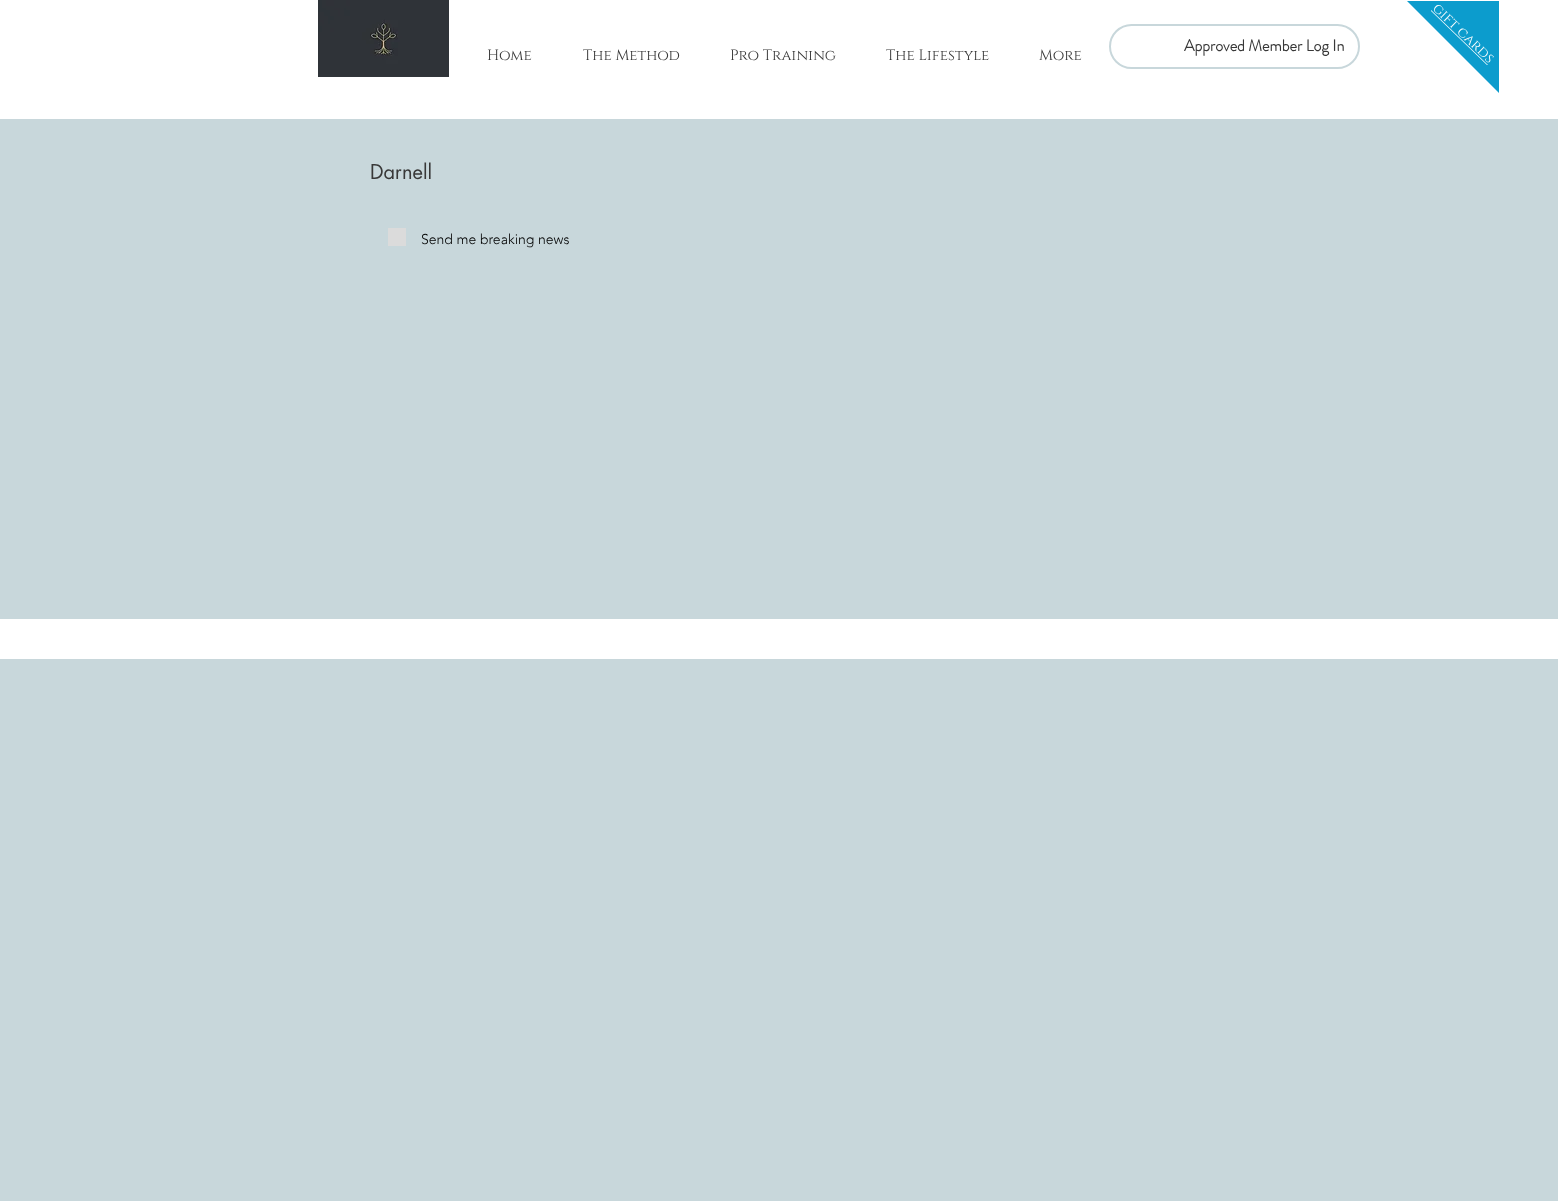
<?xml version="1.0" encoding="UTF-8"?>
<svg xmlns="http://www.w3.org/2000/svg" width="1558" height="1201">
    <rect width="100%" height="100%" fill="#C8D7DB"/>
    <rect x="0" y="0" width="1558" height="119" fill="#FFFFFF"/>
    <text x="487" y="60" font-family="Cinzel" font-size="15" fill="#383838">Home</text>
    <text x="583" y="60" font-family="Cinzel" font-size="15" fill="#383838">The Method</text>
    <text x="730" y="60" font-family="Cinzel" font-size="15" fill="#383838">Pro Training</text>
    <text x="886" y="60" font-family="Cinzel" font-size="15" fill="#383838">The Lifestyle</text>
    <text x="1039" y="60" font-family="Cinzel" font-size="15" fill="#383838">More</text>
    <image x="318" y="0" width="131" height="77" href="img_01.png"/>
    <path d="M 1407 1 H 1499 V 93 Z" fill="#0C9CCD"/>
    <rect x="1110" y="25" width="249" height="43" rx="21.5" fill="none" stroke="#C8D7DB" stroke-width="2"/>
    <text x="1184" y="51" font-family="'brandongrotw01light'" font-size="16" font-weight="700" fill="#383838">Approved Member Log In</text>
    <path d="M 1431 10 L 1488 65 H 1487 L 1431 11 Z" fill="#FFFFFF"/>
    <text x="1432" y="9" transform="rotate(43.9 1432 9)" font-family="Cinzel" font-size="14" fill="#FFFFFF">gift cards</text>
    <text x="370" y="179" font-family="futura" font-size="20" fill="#383838">Darnell</text>
    <rect x="388" y="228" width="18" height="18" fill="#DBDBDB"/>
    <text x="421" y="244" font-family="'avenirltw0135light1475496'" font-size="14" font-weight="300" fill="#000000">Send me breaking news</text>
    <rect x="0" y="619" width="1558" height="40" fill="#FFFFFF"/>
</svg>
